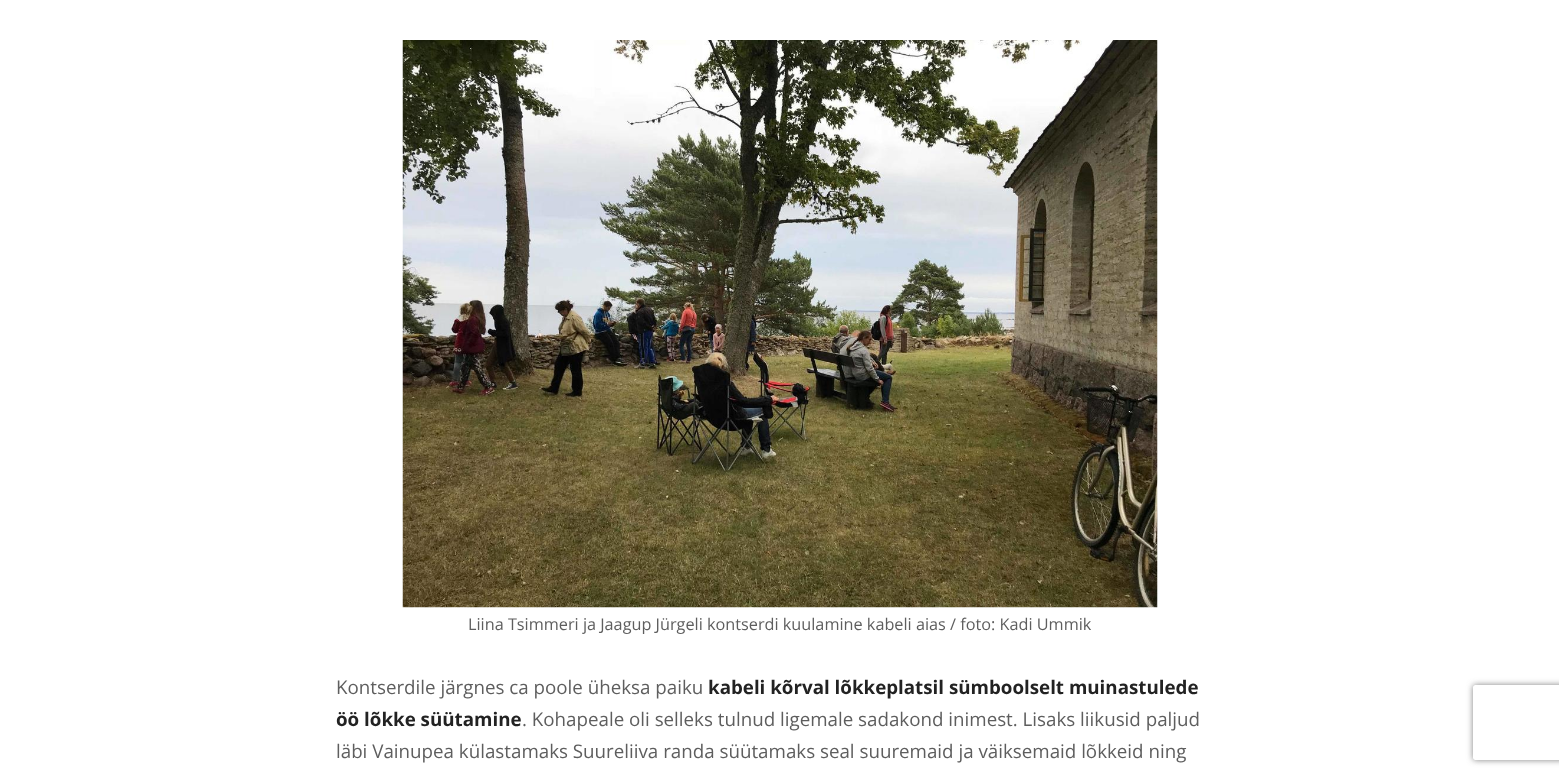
<?xml version="1.0" encoding="UTF-8"?>
<svg xmlns="http://www.w3.org/2000/svg" width="1559" height="777">
    <defs>
        <clipPath id="clip1"><path d="M 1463 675 H 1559 V 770 H 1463 Z M 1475.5 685 H 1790.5 C 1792 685 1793 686 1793 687.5 V 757.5 C 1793 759 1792 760 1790.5 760 H 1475.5 C 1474 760 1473 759 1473 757.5 V 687.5 C 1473 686 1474 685 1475.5 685 Z" clip-rule="evenodd"/></clipPath>
        <filter id="blur1" x="-50%" y="-200%" width="200%" height="500%"><feGaussianBlur stdDeviation="3"/></filter>
    </defs>
    <rect width="100%" height="100%" fill="#FFFFFF"/>
    <image x="402" y="40" width="756" height="568" href="img_01.png"/>
    <text x="468" y="630" font-family="Open Sans" font-size="16.25" fill="#5E5E5E">Liina Tsimmeri ja Jaagup Jürgeli kontserdi kuulamine kabeli aias / foto: Kadi Ummik</text>
    <text x="336" y="694" font-family="Open Sans" font-size="18.75" fill="#5E5E5E">Kontserdile järgnes ca poole üheksa paiku</text>
    <text x="708" y="694" font-family="Open Sans" font-size="18.75" font-weight="700" fill="#222222">kabeli kõrval lõkkeplatsil sümboolselt muinastulede</text>
    <text x="336" y="726" font-family="Open Sans" font-size="18.75" font-weight="700" fill="#222222">öö lõkke süütamine</text>
    <text x="522" y="726" font-family="Open Sans" font-size="18.75" fill="#5E5E5E">. Kohapeale oli selleks tulnud ligemale sadakond inimest. Lisaks liikusid paljud</text>
    <text x="336" y="758" font-family="Open Sans" font-size="18.75" fill="#5E5E5E">läbi Vainupea külastamaks Suureliiva randa süütamaks seal suuremaid ja väiksemaid lõkkeid ning</text>
    <g clip-path="url(#clip1)">
        <rect x="1473" y="685" width="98" height="75" rx="2.5" fill="#808080" filter="url(#blur1)"/>
    </g>
</svg>
